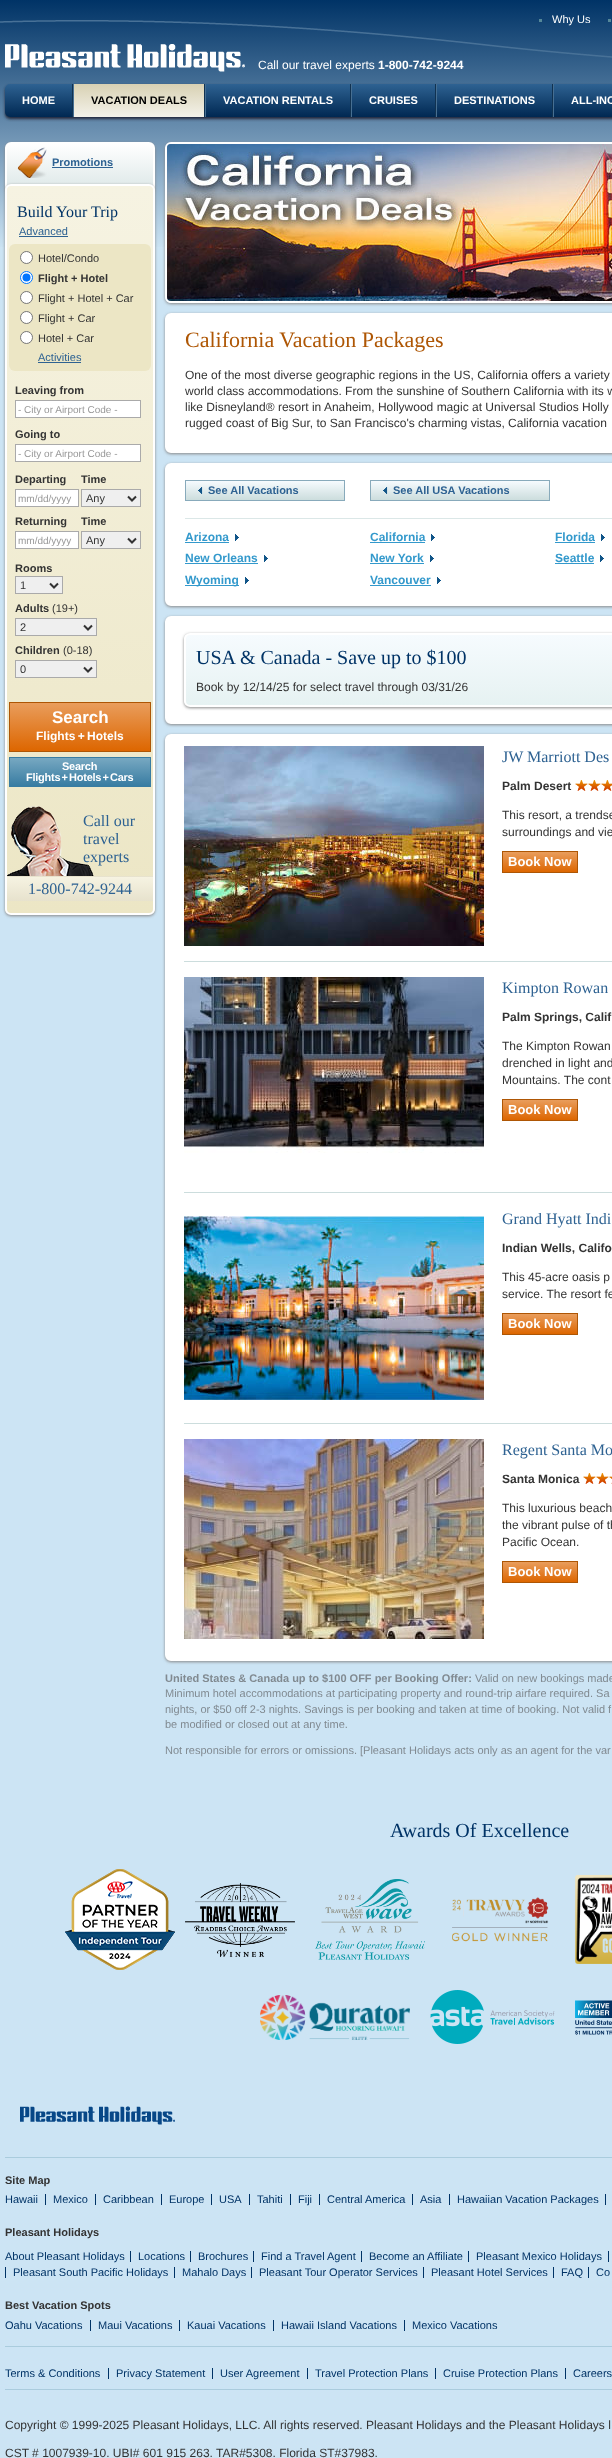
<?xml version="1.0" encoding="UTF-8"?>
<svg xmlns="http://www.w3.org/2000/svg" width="612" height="2458">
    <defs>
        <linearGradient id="g1" gradientUnits="userSpaceOnUse" x1="480" y1="0" x2="480" y2="250"><stop offset="0" stop-color="#003366"/><stop offset="1" stop-color="#CCE4F4"/></linearGradient>
        <filter id="blur1" x="-50%" y="-200%" width="200%" height="500%"><feGaussianBlur stdDeviation="1.5"/></filter>
        <linearGradient id="g2" gradientUnits="userSpaceOnUse" x1="480" y1="84" x2="480" y2="117"><stop offset="0" stop-color="#2E6292"/><stop offset="1" stop-color="#002852"/></linearGradient>
        <linearGradient id="g3" gradientUnits="userSpaceOnUse" x1="139" y1="84" x2="139" y2="117"><stop offset="0" stop-color="#D8D1B3"/><stop offset="1" stop-color="#F4F2EA"/></linearGradient>
        <linearGradient id="g4" gradientUnits="userSpaceOnUse" x1="80" y1="144" x2="80" y2="191"><stop offset="0" stop-color="#FFFFFF"/><stop offset="1" stop-color="#DCE7E7"/></linearGradient>
        <clipPath id="clip1"><rect x="5" y="184" width="150" height="731" rx="6"/></clipPath>
        <linearGradient id="g5" gradientUnits="userSpaceOnUse" x1="80" y1="186" x2="80" y2="913"><stop offset="0" stop-color="#F6F3E2"/><stop offset="1" stop-color="#ECE6C5"/></linearGradient>
        <linearGradient id="g6" gradientUnits="userSpaceOnUse" x1="80" y1="703" x2="80" y2="751"><stop offset="0" stop-color="#E99D5C"/><stop offset="1" stop-color="#DD6600"/></linearGradient>
        <linearGradient id="g7" gradientUnits="userSpaceOnUse" x1="80" y1="758" x2="80" y2="786"><stop offset="0" stop-color="#77A8C1"/><stop offset="1" stop-color="#387CA2"/></linearGradient>
        <linearGradient id="g8" gradientUnits="userSpaceOnUse" x1="80" y1="853" x2="80" y2="877"><stop offset="0" stop-color="#F6F3E2"/><stop offset="1" stop-color="#E7E2CD"/></linearGradient>
        <linearGradient id="g9" gradientUnits="userSpaceOnUse" x1="80" y1="877" x2="80" y2="901"><stop offset="0" stop-color="#F6F3E2"/><stop offset="1" stop-color="#E7E2CD"/></linearGradient>
        <clipPath id="clip2"><path d="M 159 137 H 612 V 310 H 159 Z M 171 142 H 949 C 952.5 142 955 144.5 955 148 V 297 C 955 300.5 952.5 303 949 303 H 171 C 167.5 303 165 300.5 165 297 V 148 C 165 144.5 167.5 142 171 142 Z" clip-rule="evenodd"/></clipPath>
        <linearGradient id="g10" gradientUnits="userSpaceOnUse" x1="265" y1="481" x2="265" y2="500"><stop offset="0" stop-color="#F6FBFE"/><stop offset="1" stop-color="#CCDDDD"/></linearGradient>
        <linearGradient id="g11" gradientUnits="userSpaceOnUse" x1="460" y1="481" x2="460" y2="500"><stop offset="0" stop-color="#F6FBFE"/><stop offset="1" stop-color="#CCDDDD"/></linearGradient>
        <clipPath id="clip3"><rect x="184" y="633" width="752" height="74" rx="6"/></clipPath>
        <linearGradient id="g12" gradientUnits="userSpaceOnUse" x1="560" y1="635" x2="560" y2="705"><stop offset="0" stop-color="#F6FBFE"/><stop offset="1" stop-color="#E6F2F2"/></linearGradient>
        <linearGradient id="g13" gradientUnits="userSpaceOnUse" x1="540" y1="852" x2="540" y2="872"><stop offset="0" stop-color="#E99D5C"/><stop offset="1" stop-color="#DD6600"/></linearGradient>
        <linearGradient id="g14" gradientUnits="userSpaceOnUse" x1="540" y1="1100" x2="540" y2="1120"><stop offset="0" stop-color="#E99D5C"/><stop offset="1" stop-color="#DD6600"/></linearGradient>
        <linearGradient id="g15" gradientUnits="userSpaceOnUse" x1="540" y1="1314" x2="540" y2="1334"><stop offset="0" stop-color="#E99D5C"/><stop offset="1" stop-color="#DD6600"/></linearGradient>
        <linearGradient id="g16" gradientUnits="userSpaceOnUse" x1="540" y1="1562" x2="540" y2="1582"><stop offset="0" stop-color="#E99D5C"/><stop offset="1" stop-color="#DD6600"/></linearGradient>
        <clipPath id="clip4"><rect x="5" y="2194" width="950" height="11"/></clipPath>
    </defs>
    <rect width="100%" height="100%" fill="#CCE4F4"/>
    <rect x="0" y="0" width="612" height="247" fill="url(#g1)"/>
    <image x="0" y="20" width="612" height="38" href="img_01.png"/>
    <rect x="539" y="19" width="3" height="3" fill="#558899"/>
    <text x="552" y="23" font-family="Liberation Sans" font-size="11" fill="#FFFFFF">Why Us</text>
    <rect x="608" y="19" width="3" height="3" fill="#558899"/>
    <image x="5" y="44" width="240" height="28" href="img_02.png"/>
    <text x="258" y="69" font-family="Liberation Sans" font-size="12" fill="#FFFFFF">Call our travel experts</text>
    <text x="378" y="69" font-family="Liberation Sans" font-size="12" font-weight="700" fill="#FFFFFF">1-800-742-9244</text>
    <rect x="5" y="86" width="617" height="33" rx="5" fill="#202739" filter="url(#blur1)"/>
    <rect x="5" y="84" width="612" height="33" rx="5" fill="url(#g2)"/>
    <text x="22" y="104" font-family="Liberation Sans" font-size="11" font-weight="700" fill="#FFFFFF">HOME</text>
    <rect x="72" y="84" width="1" height="33" fill="#103251"/>
    <rect x="74" y="84" width="130" height="33" fill="url(#g3)"/>
    <rect x="73" y="84" width="1" height="33" fill="#476F92"/>
    <text x="91" y="104" font-family="Liberation Sans" font-size="11" font-weight="700" fill="#000000">VACATION DEALS</text>
    <rect x="204" y="84" width="1" height="33" fill="#103251"/>
    <rect x="205" y="84" width="1" height="33" fill="#476F92"/>
    <text x="223" y="104" font-family="Liberation Sans" font-size="11" font-weight="700" fill="#FFFFFF">VACATION RENTALS</text>
    <rect x="350" y="84" width="1" height="33" fill="#103251"/>
    <rect x="351" y="84" width="1" height="33" fill="#476F92"/>
    <text x="369" y="104" font-family="Liberation Sans" font-size="11" font-weight="700" fill="#FFFFFF">CRUISES</text>
    <rect x="435" y="84" width="1" height="33" fill="#103251"/>
    <rect x="436" y="84" width="1" height="33" fill="#476F92"/>
    <text x="454" y="104" font-family="Liberation Sans" font-size="11" font-weight="700" fill="#FFFFFF">DESTINATIONS</text>
    <rect x="552" y="84" width="1" height="33" fill="#103251"/>
    <rect x="553" y="84" width="1" height="33" fill="#476F92"/>
    <text x="571" y="104" font-family="Liberation Sans" font-size="11" font-weight="700" fill="#FFFFFF">ALL-INC</text>
    <rect x="5" y="143" width="150" height="51" rx="6" fill="#888888" filter="url(#blur1)"/>
    <rect x="6" y="143" width="148" height="49" rx="5" fill="#FFFFFF" stroke="#FFFFFF" stroke-width="2"/>
    <path d="M 12 144 H 148 C 151 144 153 146 153 149 V 191 H 7 V 149 C 7 146 9 144 12 144 Z" fill="url(#g4)"/>
    <image x="17" y="147" width="30" height="31" href="img_03.png"/>
    <text x="52" y="166" font-family="Liberation Sans" font-size="11" font-weight="700" fill="#2E6292">Promotions</text>
    <rect x="52" y="167" width="61" height="1" fill="#2E6292"/>
    <rect x="5" y="185" width="150" height="731" rx="6" fill="#888888" filter="url(#blur1)"/>
    <g clip-path="url(#clip1)">
        <rect x="5" y="186" width="150" height="727" fill="url(#g5)"/>
    </g>
    <rect x="6" y="185" width="148" height="729" rx="5" fill="none" stroke="#FFFFFF" stroke-width="2"/>
    <text x="17" y="217" font-family="Liberation Serif" font-size="16" fill="#003366">Build Your Trip</text>
    <text x="19" y="235" font-family="Liberation Sans" font-size="11" fill="#2E6292">Advanced</text>
    <rect x="19" y="236" width="49" height="1" fill="#2E6292"/>
    <rect x="9" y="244" width="142" height="127" rx="6" fill="#ECE6C5"/>
    <circle cx="26.5" cy="257.5" r="6" fill="#FFFFFF" stroke="#767676"/>
    <text x="38" y="262" font-family="Liberation Sans" font-size="11" fill="#333333">Hotel/Condo</text>
    <circle cx="26.5" cy="277.5" r="6" fill="#FFFFFF" stroke="#0075FF"/>
    <circle cx="26.5" cy="277.5" r="4" fill="#0075FF"/>
    <text x="38" y="282" font-family="Liberation Sans" font-size="11" font-weight="700" fill="#333333">Flight + Hotel</text>
    <circle cx="26.5" cy="297.5" r="6" fill="#FFFFFF" stroke="#767676"/>
    <text x="38" y="302" font-family="Liberation Sans" font-size="11" fill="#333333">Flight + Hotel + Car</text>
    <circle cx="26.5" cy="317.5" r="6" fill="#FFFFFF" stroke="#767676"/>
    <text x="38" y="322" font-family="Liberation Sans" font-size="11" fill="#333333">Flight + Car</text>
    <circle cx="26.5" cy="337.5" r="6" fill="#FFFFFF" stroke="#767676"/>
    <text x="38" y="342" font-family="Liberation Sans" font-size="11" fill="#333333">Hotel + Car</text>
    <text x="38" y="361" font-family="Liberation Sans" font-size="11" fill="#2E6292">Activities</text>
    <rect x="38" y="362" width="43" height="1" fill="#2E6292"/>
    <text x="15" y="394" font-family="Liberation Sans" font-size="11" font-weight="700" fill="#333333">Leaving from</text>
    <rect x="15.5" y="400.5" width="125" height="17" fill="#FFFFFF" stroke="#AAAAAA"/>
    <text x="18" y="413" font-family="Liberation Sans" font-size="10" fill="#999999">- City or Airport Code -</text>
    <text x="15" y="438" font-family="Liberation Sans" font-size="11" font-weight="700" fill="#333333">Going to</text>
    <rect x="15.5" y="444.5" width="125" height="17" fill="#FFFFFF" stroke="#AAAAAA"/>
    <text x="18" y="457" font-family="Liberation Sans" font-size="10" fill="#999999">- City or Airport Code -</text>
    <text x="15" y="483" font-family="Liberation Sans" font-size="11" font-weight="700" fill="#333333">Departing</text>
    <rect x="15.5" y="489.5" width="63" height="17" fill="#FFFFFF" stroke="#AAAAAA"/>
    <text x="18" y="502" font-family="Liberation Sans" font-size="10" fill="#999999">mm/dd/yyyy</text>
    <text x="81" y="483" font-family="Liberation Sans" font-size="11" font-weight="700" fill="#333333">Time</text>
    <rect x="81.5" y="489.5" width="59" height="17" fill="#EFEFEF" stroke="#AAAAAA"/>
    <path d="M 128 496.5 L 132 500.5 L 136 496.5" fill="none" stroke="#333333" stroke-width="2"/>
    <text x="86" y="502" font-family="Liberation Sans" font-size="11" fill="#333333">Any</text>
    <text x="15" y="525" font-family="Liberation Sans" font-size="11" font-weight="700" fill="#333333">Returning</text>
    <rect x="15.5" y="531.5" width="63" height="17" fill="#FFFFFF" stroke="#AAAAAA"/>
    <text x="18" y="544" font-family="Liberation Sans" font-size="10" fill="#999999">mm/dd/yyyy</text>
    <text x="81" y="525" font-family="Liberation Sans" font-size="11" font-weight="700" fill="#333333">Time</text>
    <rect x="81.5" y="531.5" width="59" height="17" fill="#EFEFEF" stroke="#AAAAAA"/>
    <path d="M 128 538.5 L 132 542.5 L 136 538.5" fill="none" stroke="#333333" stroke-width="2"/>
    <text x="86" y="544" font-family="Liberation Sans" font-size="11" fill="#333333">Any</text>
    <text x="15" y="572" font-family="Liberation Sans" font-size="11" font-weight="700" fill="#333333">Rooms</text>
    <rect x="15.5" y="576.5" width="47" height="17" fill="#EFEFEF" stroke="#AAAAAA"/>
    <path d="M 50 583.5 L 54 587.5 L 58 583.5" fill="none" stroke="#333333" stroke-width="2"/>
    <text x="20" y="589" font-family="Liberation Sans" font-size="11" fill="#333333">1</text>
    <text x="15" y="612" font-family="Liberation Sans" font-size="11" font-weight="700" fill="#333333">Adults</text>
    <text x="52" y="612" font-family="Liberation Sans" font-size="11" fill="#333333">(19+)</text>
    <rect x="15.5" y="618.5" width="81" height="17" fill="#EFEFEF" stroke="#AAAAAA"/>
    <path d="M 84 625.5 L 88 629.5 L 92 625.5" fill="none" stroke="#333333" stroke-width="2"/>
    <text x="20" y="631" font-family="Liberation Sans" font-size="11" fill="#333333">2</text>
    <text x="15" y="654" font-family="Liberation Sans" font-size="11" font-weight="700" fill="#333333">Children</text>
    <text x="63" y="654" font-family="Liberation Sans" font-size="11" fill="#333333">(0-18)</text>
    <rect x="15.5" y="660.5" width="81" height="17" fill="#EFEFEF" stroke="#AAAAAA"/>
    <path d="M 84 667.5 L 88 671.5 L 92 667.5" fill="none" stroke="#333333" stroke-width="2"/>
    <text x="20" y="673" font-family="Liberation Sans" font-size="11" fill="#333333">0</text>
    <rect x="10" y="703" width="140" height="48" fill="url(#g6)"/>
    <rect x="9.5" y="702.5" width="141" height="49" fill="none" stroke="#AE5604"/>
    <text x="52" y="723" font-family="Liberation Sans" font-size="17" font-weight="700" fill="#FFFFFF">Search</text>
    <text x="36" y="740" word-spacing="-1" font-family="Liberation Sans" font-size="12" font-weight="700" fill="#FFFFFF">Flights + Hotels</text>
    <rect x="10" y="758" width="140" height="28" fill="url(#g7)"/>
    <rect x="9.5" y="757.5" width="141" height="29" fill="none" stroke="#387CA2"/>
    <text x="62" y="770" font-family="Liberation Sans" font-size="11" font-weight="700" letter-spacing="-0.25" fill="#FFFFFF">Search</text>
    <text x="26" y="781" word-spacing="-1.5" font-family="Liberation Sans" font-size="11" font-weight="700" letter-spacing="-0.25" fill="#FFFFFF">Flights + Hotels + Cars</text>
    <text font-family="Liberation Serif" font-size="16" fill="#2E6292">
        <tspan x="83" y="826">Call our</tspan>
        <tspan x="83" y="844">travel</tspan>
        <tspan x="83" y="862">experts</tspan>
    </text>
    <image x="7" y="805" width="87" height="71" href="img_04.png"/>
    <rect x="7" y="876" width="146" height="1" fill="url(#g8)"/>
    <rect x="7" y="877" width="146" height="24" fill="url(#g9)"/>
    <text x="28" y="894" font-family="Liberation Serif" font-size="16" fill="#2E6292">1-800-742-9244</text>
    <g clip-path="url(#clip2)">
        <rect x="165" y="143" width="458" height="161" rx="6" fill="#888888" filter="url(#blur1)"/>
    </g>
    <rect x="166" y="143" width="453" height="159" rx="5" fill="none" stroke="#FFFFFF" stroke-width="2"/>
    <image x="167" y="144" width="445" height="157" href="img_05.png"/>
    <rect x="165" y="314" width="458" height="140" rx="6" fill="#888888" filter="url(#blur1)"/>
    <rect x="166" y="314" width="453" height="138" rx="5" fill="#FFFFFF" stroke="#FFFFFF" stroke-width="2"/>
    <text x="185" y="347" font-family="Liberation Serif" font-size="22" fill="#AE5604">California Vacation Packages</text>
    <text font-family="Liberation Sans" font-size="12" fill="#333333">
        <tspan x="185" y="379">One of the most diverse geographic regions in the US, California offers a variety</tspan>
        <tspan x="185" y="395">world class accommodations. From the sunshine of Southern California with its w</tspan>
        <tspan x="185" y="411">like Disneyland® resort in Anaheim, Hollywood magic at Universal Studios Holly</tspan>
        <tspan x="185" y="427">rugged coast of Big Sur, to San Francisco's charming vistas, California vacation</tspan>
    </text>
    <rect x="165" y="464" width="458" height="143" rx="6" fill="#888888" filter="url(#blur1)"/>
    <rect x="166" y="464" width="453" height="141" rx="5" fill="#FFFFFF" stroke="#FFFFFF" stroke-width="2"/>
    <rect x="186" y="481" width="158" height="19" fill="url(#g10)"/>
    <rect x="185.5" y="480.5" width="159" height="20" fill="none" stroke="#88AABB"/>
    <image x="198" y="487" width="5" height="7" href="img_06.png"/>
    <text x="208" y="494" font-family="Liberation Sans" font-size="11" font-weight="700" fill="#2E6292">See All Vacations</text>
    <rect x="371" y="481" width="178" height="19" fill="url(#g11)"/>
    <rect x="370.5" y="480.5" width="179" height="20" fill="none" stroke="#88AABB"/>
    <image x="383" y="487" width="5" height="7" href="img_06.png"/>
    <text x="393" y="494" font-family="Liberation Sans" font-size="11" font-weight="700" fill="#2E6292">See All USA Vacations</text>
    <rect x="185" y="518" width="427" height="1" fill="#DBE7E7"/>
    <text x="185" y="541" font-family="Liberation Sans" font-size="12" font-weight="700" fill="#3399CC">Arizona</text>
    <rect x="185" y="542" width="44" height="1" fill="#3399CC"/>
    <image x="235" y="534" width="4" height="7" href="img_07.png"/>
    <text x="370" y="541" font-family="Liberation Sans" font-size="12" font-weight="700" fill="#3399CC">California</text>
    <rect x="370" y="542" width="55" height="1" fill="#3399CC"/>
    <image x="431" y="534" width="4" height="7" href="img_07.png"/>
    <text x="555" y="541" font-family="Liberation Sans" font-size="12" font-weight="700" fill="#3399CC">Florida</text>
    <rect x="555" y="542" width="40" height="1" fill="#3399CC"/>
    <image x="601" y="534" width="4" height="7" href="img_07.png"/>
    <text x="185" y="562" font-family="Liberation Sans" font-size="12" font-weight="700" fill="#3399CC">New Orleans</text>
    <rect x="185" y="563" width="73" height="1" fill="#3399CC"/>
    <image x="264" y="555" width="4" height="7" href="img_07.png"/>
    <text x="370" y="562" font-family="Liberation Sans" font-size="12" font-weight="700" fill="#3399CC">New York</text>
    <rect x="370" y="563" width="54" height="1" fill="#3399CC"/>
    <image x="430" y="555" width="4" height="7" href="img_07.png"/>
    <text x="555" y="562" font-family="Liberation Sans" font-size="12" font-weight="700" fill="#3399CC">Seattle</text>
    <rect x="555" y="563" width="39" height="1" fill="#3399CC"/>
    <image x="600" y="555" width="4" height="7" href="img_07.png"/>
    <rect x="185" y="585" width="54" height="1" fill="#3399CC"/>
    <text x="185" y="584" font-family="Liberation Sans" font-size="12" font-weight="700" fill="#3399CC">Wyoming</text>
    <image x="245" y="577" width="4" height="7" href="img_07.png"/>
    <text x="370" y="584" font-family="Liberation Sans" font-size="12" font-weight="700" fill="#3399CC">Vancouver</text>
    <rect x="370" y="585" width="61" height="1" fill="#3399CC"/>
    <image x="437" y="577" width="4" height="7" href="img_07.png"/>
    <rect x="165" y="617" width="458" height="108" rx="6" fill="#888888" filter="url(#blur1)"/>
    <rect x="166" y="617" width="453" height="106" rx="5" fill="#FFFFFF" stroke="#FFFFFF" stroke-width="2"/>
    <rect x="184" y="634" width="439" height="74" rx="6" fill="#888888" filter="url(#blur1)"/>
    <g clip-path="url(#clip3)">
        <rect x="184" y="635" width="428" height="70" fill="url(#g12)"/>
    </g>
    <rect x="185" y="634" width="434" height="72" rx="5" fill="none" stroke="#FFFFFF" stroke-width="2"/>
    <text x="196" y="664" font-family="Liberation Serif" font-size="20" fill="#003366">USA &amp; Canada - Save up to $100</text>
    <text x="196" y="691" font-family="Liberation Sans" font-size="12" fill="#333333">Book by 12/14/25 for select travel through 03/31/26</text>
    <rect x="165" y="735" width="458" height="927" rx="6" fill="#888888" filter="url(#blur1)"/>
    <rect x="166" y="735" width="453" height="925" rx="5" fill="#FFFFFF" stroke="#FFFFFF" stroke-width="2"/>
    <rect x="184" y="961" width="428" height="1" fill="#CCDDDD"/>
    <image x="184" y="746" width="300" height="200" href="img_08.png"/>
    <text x="502" y="762" font-family="Liberation Serif" font-size="16" fill="#2E6292">JW Marriott Des</text>
    <text x="502" y="790" font-family="Liberation Sans" font-size="12" font-weight="700" fill="#333333">Palm Desert</text>
    <image x="575" y="780" width="37" height="11" href="img_09.png"/>
    <text font-family="Liberation Sans" font-size="12" fill="#333333">
        <tspan x="502" y="819">This resort, a trendse</tspan>
        <tspan x="502" y="836">surroundings and vie</tspan>
    </text>
    <rect x="503" y="852" width="74" height="20" fill="url(#g13)"/>
    <rect x="502.5" y="851.5" width="75" height="21" fill="none" stroke="#AE5604"/>
    <text x="508" y="866" font-family="Liberation Sans" font-size="13" font-weight="700" fill="#FFFFFF">Book Now</text>
    <rect x="184" y="1192" width="428" height="1" fill="#CCDDDD"/>
    <image x="184" y="977" width="300" height="176" href="img_10.png"/>
    <text x="502" y="993" font-family="Liberation Serif" font-size="16" fill="#2E6292">Kimpton Rowan</text>
    <text x="502" y="1021" font-family="Liberation Sans" font-size="12" font-weight="700" fill="#333333">Palm Springs, Calif</text>
    <text font-family="Liberation Sans" font-size="12" fill="#333333">
        <tspan x="502" y="1050">The Kimpton Rowan</tspan>
        <tspan x="502" y="1067">drenched in light and</tspan>
        <tspan x="502" y="1084">Mountains. The cont</tspan>
    </text>
    <rect x="503" y="1100" width="74" height="20" fill="url(#g14)"/>
    <rect x="502.5" y="1099.5" width="75" height="21" fill="none" stroke="#AE5604"/>
    <text x="508" y="1114" font-family="Liberation Sans" font-size="13" font-weight="700" fill="#FFFFFF">Book Now</text>
    <rect x="184" y="1423" width="428" height="1" fill="#CCDDDD"/>
    <image x="184" y="1216" width="300" height="184" href="img_11.png"/>
    <text x="502" y="1224" font-family="Liberation Serif" font-size="16" fill="#2E6292">Grand Hyatt Indi</text>
    <text x="502" y="1252" font-family="Liberation Sans" font-size="12" font-weight="700" fill="#333333">Indian Wells, Califo</text>
    <text font-family="Liberation Sans" font-size="12" fill="#333333">
        <tspan x="502" y="1281">This 45-acre oasis p</tspan>
        <tspan x="502" y="1298">service. The resort fe</tspan>
    </text>
    <rect x="503" y="1314" width="74" height="20" fill="url(#g15)"/>
    <rect x="502.5" y="1313.5" width="75" height="21" fill="none" stroke="#AE5604"/>
    <text x="508" y="1328" font-family="Liberation Sans" font-size="13" font-weight="700" fill="#FFFFFF">Book Now</text>
    <image x="184" y="1439" width="300" height="200" href="img_12.png"/>
    <text x="502" y="1455" font-family="Liberation Serif" font-size="16" fill="#2E6292">Regent Santa Mo</text>
    <text x="502" y="1483" font-family="Liberation Sans" font-size="12" font-weight="700" fill="#333333">Santa Monica</text>
    <image x="583" y="1473" width="29" height="11" href="img_13.png"/>
    <text font-family="Liberation Sans" font-size="12" fill="#333333">
        <tspan x="502" y="1512">This luxurious beach</tspan>
        <tspan x="502" y="1529">the vibrant pulse of th</tspan>
        <tspan x="502" y="1546">Pacific Ocean.</tspan>
    </text>
    <rect x="503" y="1562" width="74" height="20" fill="url(#g16)"/>
    <rect x="502.5" y="1561.5" width="75" height="21" fill="none" stroke="#AE5604"/>
    <text x="508" y="1576" font-family="Liberation Sans" font-size="13" font-weight="700" fill="#FFFFFF">Book Now</text>
    <text x="165" y="1682" font-family="Liberation Sans" font-size="11" font-weight="700" fill="#818A91">United States &amp; Canada up to $100 OFF per Booking Offer:</text>
    <text x="475" y="1682" font-family="Liberation Sans" font-size="11" fill="#818A91">Valid on new bookings made</text>
    <text font-family="Liberation Sans" font-size="11" fill="#818A91">
        <tspan x="165" y="1697">Minimum hotel accommodations at participating property and round-trip airfare required. Sa</tspan>
        <tspan x="165" y="1713">nights, or $50 off 2-3 nights. Savings is per booking and taken at time of booking. Not valid f</tspan>
        <tspan x="165" y="1728">be modified or closed out at any time.</tspan>
    </text>
    <text x="165" y="1754" font-family="Liberation Sans" font-size="11" fill="#818A91">Not responsible for errors or omissions. [Pleasant Holidays acts only as an agent for the var</text>
    <text x="390" y="1837" font-family="Liberation Serif" font-size="20" fill="#003366">Awards Of Excellence</text>
    <image x="65" y="1869" width="110" height="101" href="img_14.png"/>
    <image x="185" y="1883" width="110" height="74" href="img_15.png"/>
    <image x="315" y="1879" width="110" height="81" href="img_16.png"/>
    <image x="452" y="1897" width="97" height="45" href="img_17.png"/>
    <image x="575" y="1875" width="37" height="89" href="img_18.png"/>
    <image x="260" y="1995" width="150" height="45" href="img_19.png"/>
    <image x="430" y="1990" width="125" height="54" href="img_20.png"/>
    <image x="575" y="2000" width="37" height="35" href="img_21.png"/>
    <image x="20" y="2106" width="155" height="19" href="img_22.png"/>
    <rect x="5" y="2157" width="607" height="1" fill="#AACCDD"/>
    <text x="5" y="2184" font-family="Liberation Sans" font-size="11" font-weight="700" fill="#333333">Site Map</text>
    <text x="5" y="2203" font-family="Liberation Sans" font-size="11" fill="#003366">Hawaii</text>
    <rect x="45" y="2194" width="1" height="11" fill="#003366"/>
    <text x="53" y="2203" font-family="Liberation Sans" font-size="11" fill="#003366">Mexico</text>
    <rect x="95" y="2194" width="1" height="11" fill="#003366"/>
    <text x="103" y="2203" font-family="Liberation Sans" font-size="11" fill="#003366">Caribbean</text>
    <rect x="161" y="2194" width="1" height="11" fill="#003366"/>
    <text x="169" y="2203" font-family="Liberation Sans" font-size="11" fill="#003366">Europe</text>
    <rect x="211" y="2194" width="1" height="11" fill="#003366"/>
    <text x="219" y="2203" font-family="Liberation Sans" font-size="11" fill="#003366">USA</text>
    <rect x="249" y="2194" width="1" height="11" fill="#003366"/>
    <text x="257" y="2203" font-family="Liberation Sans" font-size="11" fill="#003366">Tahiti</text>
    <rect x="290" y="2194" width="1" height="11" fill="#003366"/>
    <text x="298" y="2203" font-family="Liberation Sans" font-size="11" fill="#003366">Fiji</text>
    <rect x="319" y="2194" width="1" height="11" fill="#003366"/>
    <text x="327" y="2203" font-family="Liberation Sans" font-size="11" fill="#003366">Central America</text>
    <rect x="412" y="2194" width="1" height="11" fill="#003366"/>
    <text x="420" y="2203" font-family="Liberation Sans" font-size="11" fill="#003366">Asia</text>
    <rect x="449" y="2194" width="1" height="11" fill="#003366"/>
    <g clip-path="url(#clip4)">
        <text x="457" y="2203" font-family="Liberation Sans" font-size="11" fill="#003366">Hawaiian Vacation Packages</text>
    </g>
    <rect x="605" y="2194" width="1" height="11" fill="#003366"/>
    <text x="5" y="2236" font-family="Liberation Sans" font-size="11" font-weight="700" fill="#333333">Pleasant Holidays</text>
    <text x="5" y="2260" font-family="Liberation Sans" font-size="11" fill="#003366">About Pleasant Holidays</text>
    <rect x="130" y="2251" width="1" height="11" fill="#003366"/>
    <text x="138" y="2260" font-family="Liberation Sans" font-size="11" fill="#003366">Locations</text>
    <rect x="190" y="2251" width="1" height="11" fill="#003366"/>
    <text x="198" y="2260" font-family="Liberation Sans" font-size="11" fill="#003366">Brochures</text>
    <rect x="253" y="2251" width="1" height="11" fill="#003366"/>
    <text x="261" y="2260" font-family="Liberation Sans" font-size="11" fill="#003366">Find a Travel Agent</text>
    <rect x="361" y="2251" width="1" height="11" fill="#003366"/>
    <text x="369" y="2260" font-family="Liberation Sans" font-size="11" fill="#003366">Become an Affiliate</text>
    <rect x="468" y="2251" width="1" height="11" fill="#003366"/>
    <text x="476" y="2260" font-family="Liberation Sans" font-size="11" fill="#003366">Pleasant Mexico Holidays</text>
    <rect x="608" y="2251" width="1" height="11" fill="#003366"/>
    <rect x="5" y="2267" width="1" height="11" fill="#003366"/>
    <text x="13" y="2276" font-family="Liberation Sans" font-size="11" fill="#003366">Pleasant South Pacific Holidays</text>
    <rect x="174" y="2267" width="1" height="11" fill="#003366"/>
    <text x="182" y="2276" font-family="Liberation Sans" font-size="11" fill="#003366">Mahalo Days</text>
    <rect x="251" y="2267" width="1" height="11" fill="#003366"/>
    <text x="259" y="2276" font-family="Liberation Sans" font-size="11" fill="#003366">Pleasant Tour Operator Services</text>
    <rect x="423" y="2267" width="1" height="11" fill="#003366"/>
    <text x="431" y="2276" font-family="Liberation Sans" font-size="11" fill="#003366">Pleasant Hotel Services</text>
    <rect x="553" y="2267" width="1" height="11" fill="#003366"/>
    <text x="561" y="2276" font-family="Liberation Sans" font-size="11" fill="#003366">FAQ</text>
    <rect x="588" y="2267" width="1" height="11" fill="#003366"/>
    <text x="596" y="2276" font-family="Liberation Sans" font-size="11" fill="#003366">Co</text>
    <text x="5" y="2309" font-family="Liberation Sans" font-size="11" font-weight="700" fill="#333333">Best Vacation Spots</text>
    <text x="5" y="2329" font-family="Liberation Sans" font-size="11" fill="#003366">Oahu Vacations</text>
    <rect x="90" y="2320" width="1" height="11" fill="#003366"/>
    <text x="98" y="2329" font-family="Liberation Sans" font-size="11" fill="#003366">Maui Vacations</text>
    <rect x="179" y="2320" width="1" height="11" fill="#003366"/>
    <text x="187" y="2329" font-family="Liberation Sans" font-size="11" fill="#003366">Kauai Vacations</text>
    <rect x="273" y="2320" width="1" height="11" fill="#003366"/>
    <text x="281" y="2329" font-family="Liberation Sans" font-size="11" fill="#003366">Hawaii Island Vacations</text>
    <rect x="404" y="2320" width="1" height="11" fill="#003366"/>
    <text x="412" y="2329" font-family="Liberation Sans" font-size="11" fill="#003366">Mexico Vacations</text>
    <rect x="5" y="2346" width="607" height="1" fill="#AACCDD"/>
    <text x="5" y="2377" font-family="Liberation Sans" font-size="11" fill="#003366">Terms &amp; Conditions</text>
    <rect x="108" y="2368" width="1" height="11" fill="#003366"/>
    <text x="116" y="2377" font-family="Liberation Sans" font-size="11" fill="#003366">Privacy Statement</text>
    <rect x="212" y="2368" width="1" height="11" fill="#003366"/>
    <text x="220" y="2377" font-family="Liberation Sans" font-size="11" fill="#003366">User Agreement</text>
    <rect x="307" y="2368" width="1" height="11" fill="#003366"/>
    <text x="315" y="2377" font-family="Liberation Sans" font-size="11" fill="#003366">Travel Protection Plans</text>
    <rect x="435" y="2368" width="1" height="11" fill="#003366"/>
    <text x="443" y="2377" font-family="Liberation Sans" font-size="11" fill="#003366">Cruise Protection Plans</text>
    <rect x="565" y="2368" width="1" height="11" fill="#003366"/>
    <text x="573" y="2377" font-family="Liberation Sans" font-size="11" fill="#003366">Careers</text>
    <rect x="5" y="2389" width="607" height="1" fill="#AACCDD"/>
    <text x="5" y="2429" font-family="Liberation Sans" font-size="12" fill="#333333">Copyright © 1999-2025 Pleasant Holidays, LLC. All rights reserved. Pleasant Holidays and the Pleasant Holidays l</text>
    <text x="5" y="2457" font-family="Liberation Sans" font-size="12" fill="#333333">CST # 1007939-10. UBI# 601 915 263. TAR#5308. Florida ST#37983.</text>
</svg>
